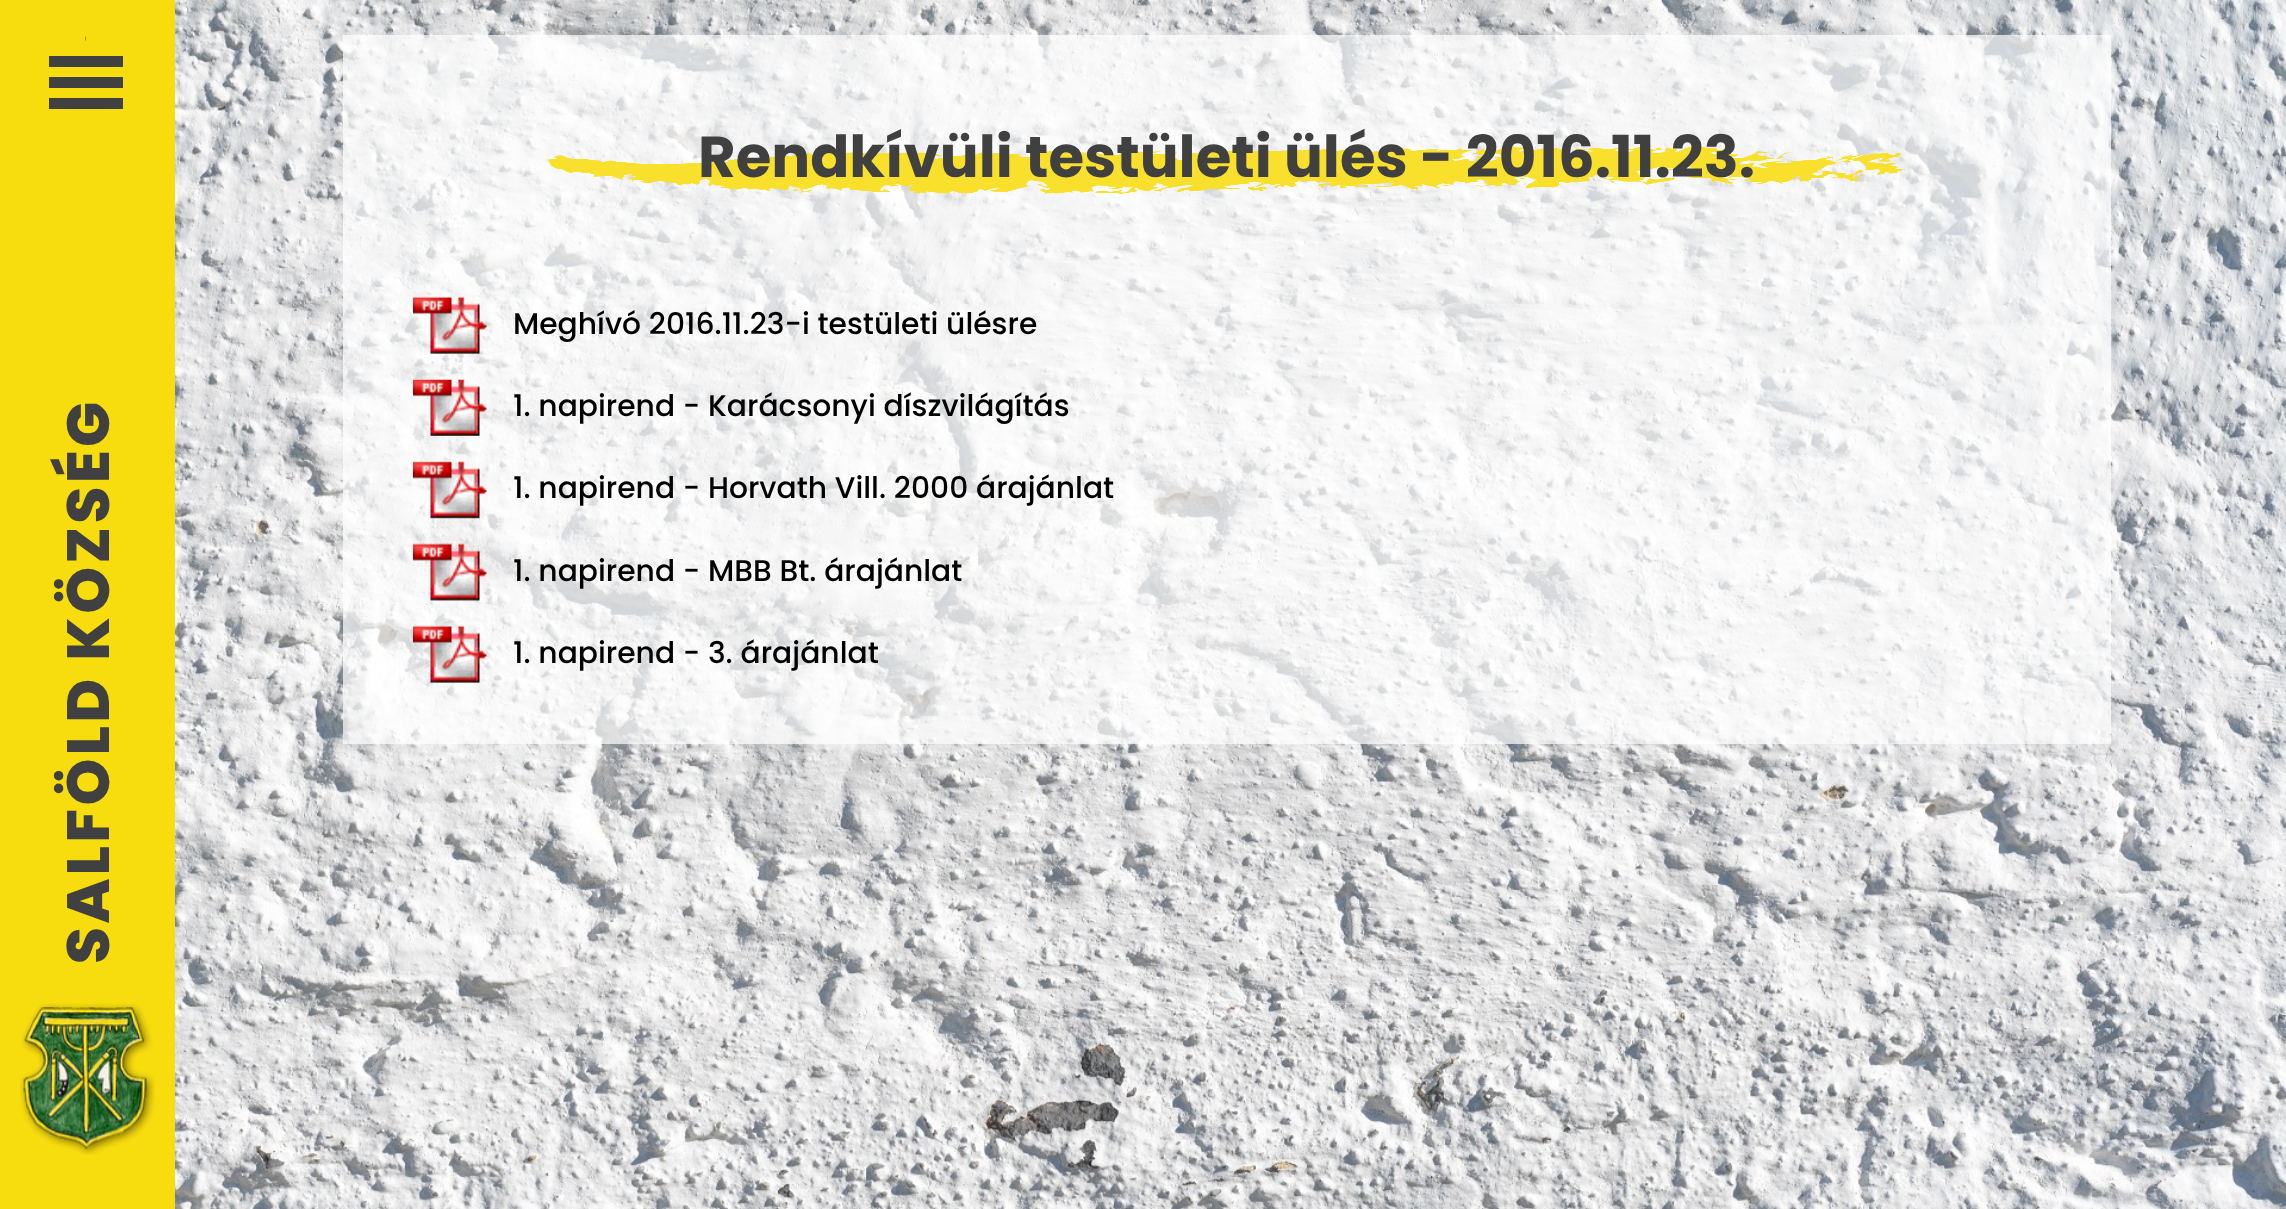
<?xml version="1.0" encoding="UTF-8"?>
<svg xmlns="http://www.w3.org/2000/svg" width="2286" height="1209">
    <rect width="100%" height="100%" fill="#FFFFFF"/>
    <rect x="0" y="0" width="175" height="1209" fill="#F7DC0E"/>
    <path d="M 85.5 38.5 H 86" fill="none" stroke="#404040" stroke-width="4.2"/>
    <rect x="49" y="77" width="74" height="11" fill="#404040"/>
    <rect x="49" y="56" width="74" height="11" fill="#404040"/>
    <rect x="49" y="98" width="74" height="11" fill="#404040"/>
    <text x="109" y="964" transform="rotate(-90 109 964)" font-family="Poppins" font-size="59.5" font-weight="800" letter-spacing="3.5" fill="#404040">SALFÖLD KÖZSÉG</text>
    <image x="20" y="1003" width="135" height="152" href="img_01.png"/>
    <image x="175" y="0" width="2111" height="1209" href="img_02.png"/>
    <rect x="343" y="35" width="1768" height="709" fill="#FFFFFF" fill-opacity="0.7"/>
    <image x="547" y="147" width="1359" height="48" href="img_03.png"/>
    <text x="698" y="177" font-family="Poppins" font-size="57.75" font-weight="700" fill="#404040">Rendkívüli testületi ülés - 2016.11.23.</text>
    <image x="413" y="296" width="74" height="58" href="img_04.png"/>
    <text x="513" y="334" font-family="Poppins" font-size="29.75" font-weight="500" fill="#000000">Meghívó 2016.11.23-i testületi ülésre</text>
    <image x="413" y="379" width="74" height="57" href="img_05.png"/>
    <text x="513" y="416" font-family="Poppins" font-size="29.75" font-weight="500" fill="#000000">1. napirend - Karácsonyi díszvilágítás</text>
    <image x="413" y="461" width="74" height="58" href="img_06.png"/>
    <text x="513" y="498" font-family="Poppins" font-size="29.75" font-weight="500" fill="#000000">1. napirend - Horvath Vill. 2000 árajánlat</text>
    <image x="413" y="543" width="74" height="58" href="img_07.png"/>
    <text x="513" y="581" font-family="Poppins" font-size="29.75" font-weight="500" fill="#000000">1. napirend - MBB Bt. árajánlat</text>
    <image x="413" y="625" width="74" height="58" href="img_08.png"/>
    <text x="513" y="663" font-family="Poppins" font-size="29.75" font-weight="500" fill="#000000">1. napirend - 3. árajánlat</text>
</svg>
